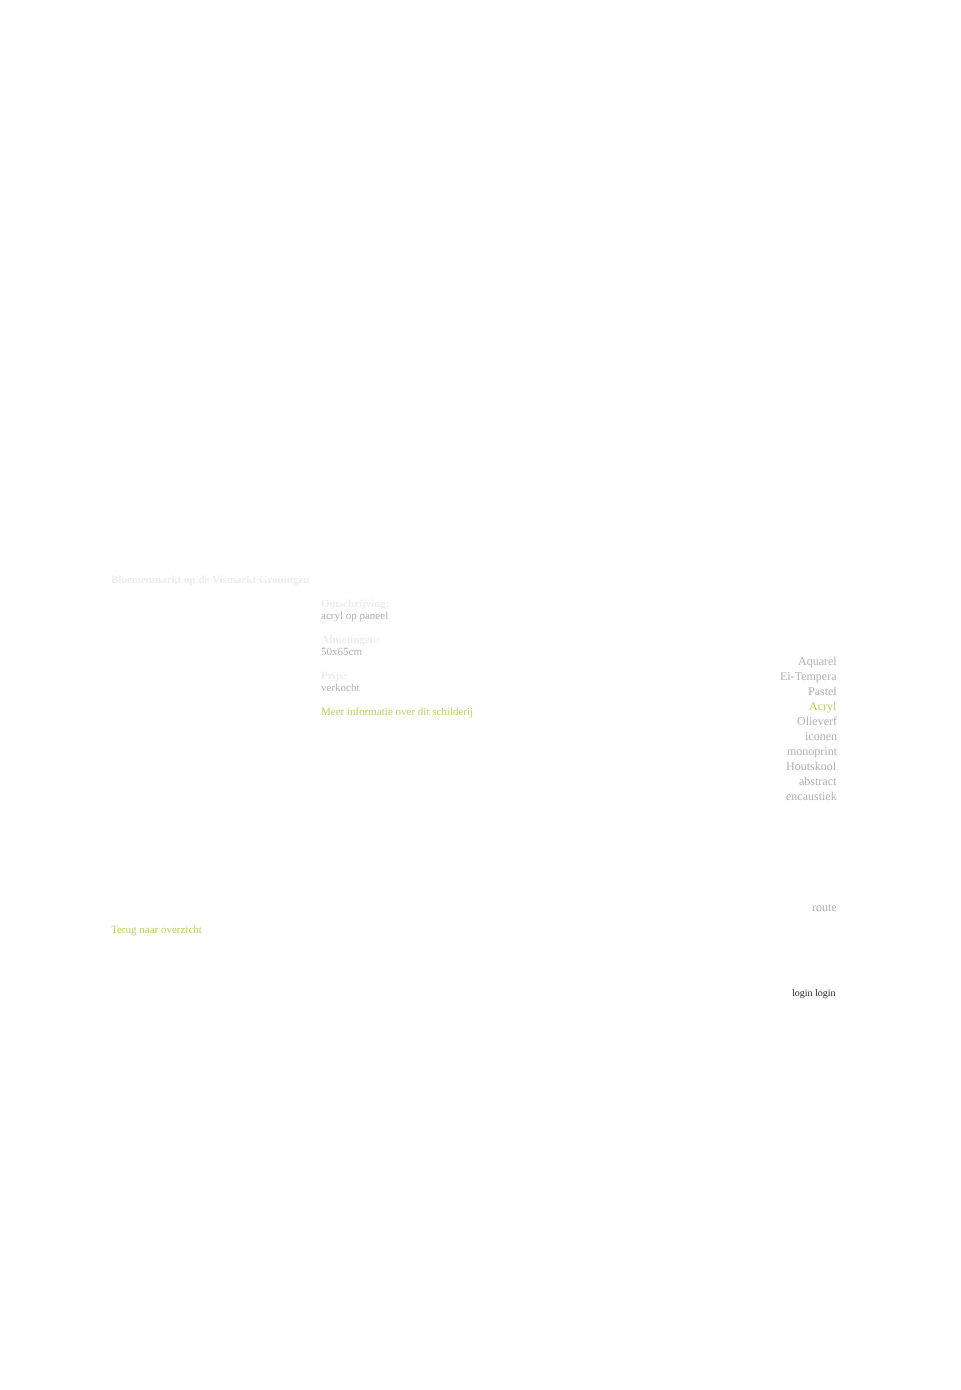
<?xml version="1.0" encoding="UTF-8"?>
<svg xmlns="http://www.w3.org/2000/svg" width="961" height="1390">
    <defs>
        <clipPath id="clip1"><rect x="111" y="573" width="505" height="364"/></clipPath>
    </defs>
    <rect width="100%" height="100%" fill="#FFFFFF"/>
    <g clip-path="url(#clip1)">
        <text x="111" y="583" font-family="Liberation Serif" font-size="11" font-weight="700" fill="#EEEEEE">Bloemenmarkt op de Vismarkt Groningen</text>
    </g>
    <text x="321" y="607" font-family="Liberation Serif" font-size="11" font-weight="700" fill="#EEEEEE">Omschrijving:</text>
    <text x="321" y="619" font-family="Liberation Serif" font-size="11" fill="#B2B2B2">acryl op paneel</text>
    <text x="321" y="643" font-family="Liberation Serif" font-size="11" font-weight="700" fill="#EEEEEE">Afmetingen:</text>
    <text x="321" y="655" font-family="Liberation Serif" font-size="11" fill="#B2B2B2">50x65cm</text>
    <text x="321" y="679" font-family="Liberation Serif" font-size="11" font-weight="700" fill="#EEEEEE">Prijs:</text>
    <text x="321" y="691" font-family="Liberation Serif" font-size="11" fill="#B2B2B2">verkocht</text>
    <text x="321" y="715" font-family="Liberation Serif" font-size="11" fill="#C1CF6C">Meer informatie over dit schilderij</text>
    <text x="111" y="933" font-family="Liberation Serif" font-size="11" fill="#C1CF6C">Terug naar overzicht</text>
    <text x="798" y="665" font-family="Liberation Serif" font-size="12" fill="#B2B2B2">Aquarel</text>
    <text x="780" y="680" font-family="Liberation Serif" font-size="12" fill="#B2B2B2">Ei-Tempera</text>
    <text x="808" y="695" font-family="Liberation Serif" font-size="12" fill="#B2B2B2">Pastel</text>
    <text x="809" y="710" font-family="Liberation Serif" font-size="12" fill="#C1CF6C">Acryl</text>
    <text x="797" y="725" font-family="Liberation Serif" font-size="12" fill="#B2B2B2">Olieverf</text>
    <text x="805" y="740" font-family="Liberation Serif" font-size="12" fill="#B2B2B2">iconen</text>
    <text x="787" y="755" font-family="Liberation Serif" font-size="12" fill="#B2B2B2">monoprint</text>
    <text x="786" y="770" font-family="Liberation Serif" font-size="12" fill="#B2B2B2">Houtskool</text>
    <text x="799" y="785" font-family="Liberation Serif" font-size="12" fill="#B2B2B2">abstract</text>
    <text x="786" y="800" font-family="Liberation Serif" font-size="12" fill="#B2B2B2">encaustiek</text>
    <text x="812" y="911" font-family="Liberation Serif" font-size="12" fill="#B2B2B2">route</text>
    <text x="792" y="996" font-family="Liberation Serif" font-size="10" fill="#1A1A1A">login login</text>
</svg>
